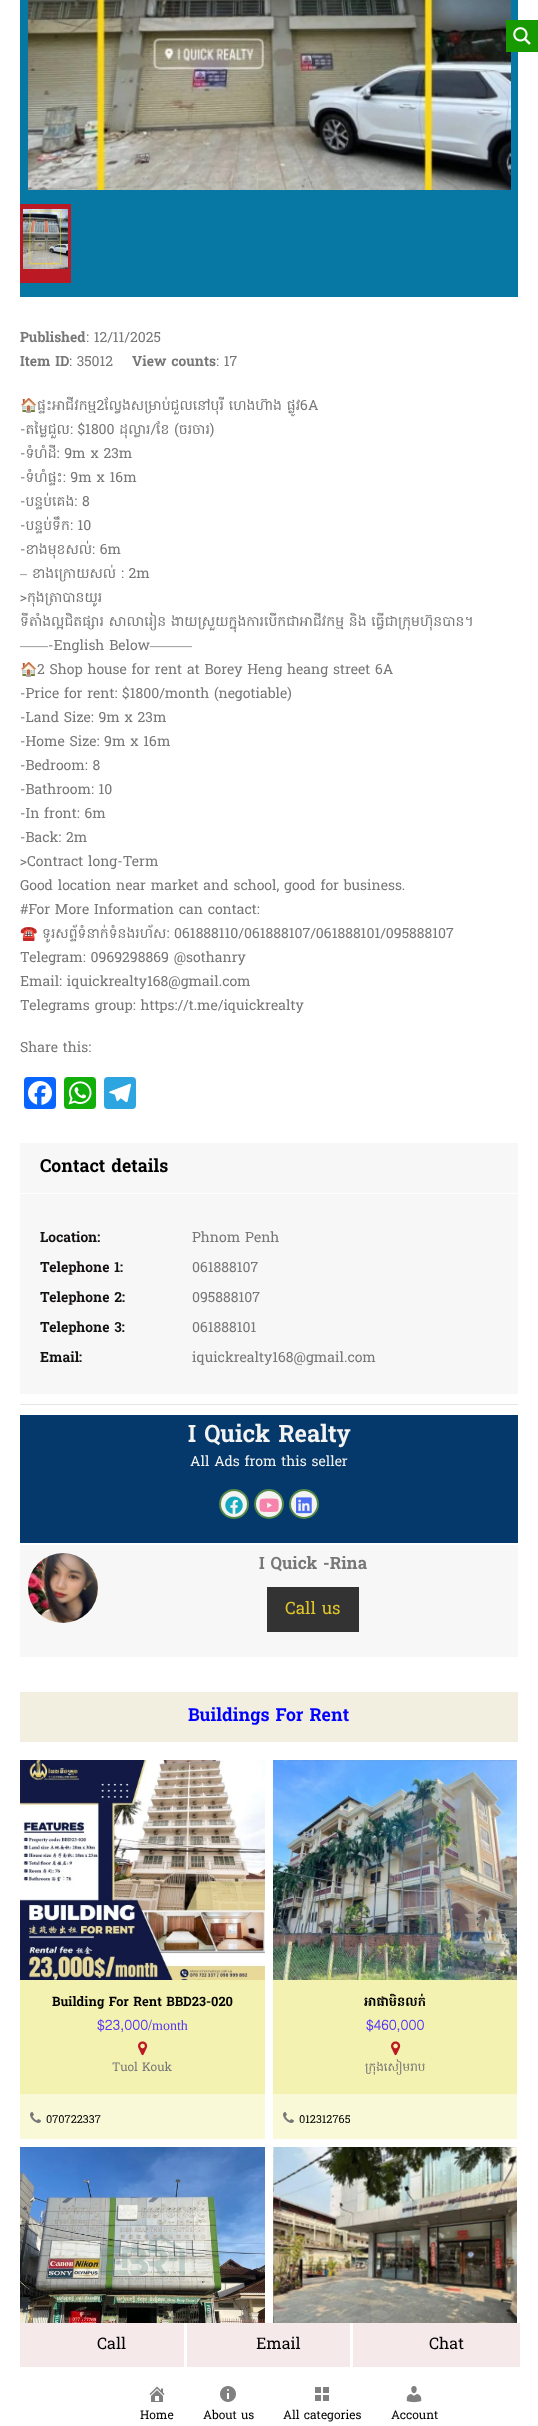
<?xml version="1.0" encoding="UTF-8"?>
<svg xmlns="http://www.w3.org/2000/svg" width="538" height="2426">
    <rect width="100%" height="100%" fill="#FFFFFF"/>
    <rect x="20" y="0" width="498" height="297" fill="#0778A4"/>
    <image x="28" y="0" width="483" height="190" href="img_03.png"/>
    <rect x="506" y="20" width="32" height="32" fill="#199900"/>
    <image x="513" y="27" width="18" height="18" href="img_01.png"/>
    <rect x="20" y="204" width="51" height="79" fill="#BB1924"/>
    <image x="23" y="209" width="45" height="60" href="img_02.png"/>
    <text x="20" y="342" font-family="Hanuman" font-size="14" font-weight="700" fill="#777777">Published</text>
    <text x="86" y="342" font-family="Hanuman" font-size="14" fill="#777777">: 12/11/2025</text>
    <text x="20" y="366" font-family="Hanuman" font-size="14" font-weight="700" fill="#777777">Item ID</text>
    <text x="69" y="366" font-family="Hanuman" font-size="14" fill="#777777">: 35012</text>
    <text x="132" y="366" font-family="Hanuman" font-size="14" font-weight="700" fill="#777777">View counts</text>
    <text x="216" y="366" font-family="Hanuman" font-size="14" fill="#777777">: 17</text>
    <text x="20" y="410" font-family="Noto Color Emoji" font-size="14" fill="#777777">🏠</text>
    <text x="37" y="410" font-family="Hanuman" font-size="14" fill="#777777">ផ្ទះអាជីវកម្ម2ល្វែងសម្រាប់ជួលនៅបុរី ហេងហ៊ាង ផ្លូវ6A</text>
    <text font-family="Hanuman" font-size="14" fill="#777777">
        <tspan x="20" y="434">-តម្លៃជួល: $1800 ដុល្លារ/ខែ (ចរចារ)</tspan>
        <tspan x="20" y="458">-ទំហំដី: 9m x 23m</tspan>
        <tspan x="20" y="482">-ទំហំផ្ទះ: 9m x 16m</tspan>
        <tspan x="20" y="506">-បន្ទប់គេង: 8</tspan>
        <tspan x="20" y="530">-បន្ទប់ទឹក: 10</tspan>
        <tspan x="20" y="554">-ខាងមុខសល់: 6m</tspan>
    </text>
    <text x="20" y="578" font-family="Liberation Serif" font-size="14" fill="#777777">–</text>
    <text x="32" y="578" font-family="Hanuman" font-size="14" fill="#777777">ខាងក្រោយសល់ : 2m</text>
    <text font-family="Hanuman" font-size="14" fill="#777777">
        <tspan x="20" y="602">&gt;កុងត្រាបានយូរ</tspan>
        <tspan x="20" y="626">ទីតាំងល្អជិតផ្សារ សាលារៀន ងាយស្រួយក្នុងការបើកជាអាជីវកម្ម និង ធ្វើជាក្រុមហ៊ុនបាន។</tspan>
    </text>
    <text x="20" y="650" font-family="Liberation Serif" font-size="14" fill="#777777">——</text>
    <text x="48" y="650" font-family="Hanuman" font-size="14" fill="#777777">-English Below</text>
    <text x="150" y="650" font-family="Liberation Serif" font-size="14" fill="#777777">———</text>
    <text x="20" y="674" font-family="Noto Color Emoji" font-size="14" fill="#777777">🏠</text>
    <text x="37" y="674" font-family="Hanuman" font-size="14" fill="#777777">2 Shop house for rent at Borey Heng heang street 6A</text>
    <text font-family="Hanuman" font-size="14" fill="#777777">
        <tspan x="20" y="698">-Price for rent: $1800/month (negotiable)</tspan>
        <tspan x="20" y="722">-Land Size: 9m x 23m</tspan>
        <tspan x="20" y="746">-Home Size: 9m x 16m</tspan>
        <tspan x="20" y="770">-Bedroom: 8</tspan>
        <tspan x="20" y="794">-Bathroom: 10</tspan>
        <tspan x="20" y="818">-In front: 6m</tspan>
        <tspan x="20" y="842">-Back: 2m</tspan>
        <tspan x="20" y="866">&gt;Contract long-Term</tspan>
        <tspan x="20" y="890">Good location near market and school, good for business.</tspan>
        <tspan x="20" y="914">#For More Information can contact:</tspan>
    </text>
    <text x="20" y="938" font-family="Noto Color Emoji" font-size="14" fill="#777777">☎️</text>
    <text x="42" y="938" font-family="Hanuman" font-size="14" fill="#777777">ទូរសព្ទ័ទំនាក់ទំនងរហ័ស: 061888110/061888107/061888101/095888107</text>
    <text font-family="Hanuman" font-size="14" fill="#777777">
        <tspan x="20" y="962">Telegram: 0969298869 @sothanry</tspan>
        <tspan x="20" y="986">Email: iquickrealty168@gmail.com</tspan>
        <tspan x="20" y="1010">Telegrams group: https://t.me/iquickrealty</tspan>
    </text>
    <text x="20" y="1052" font-family="Hanuman" font-size="14" fill="#777777">Share this:</text>
    <rect x="24" y="1077" width="32" height="32" rx="4" fill="#0866FF"/>
    <image x="28" y="1081" width="24" height="24" href="img_04.png"/>
    <rect x="64" y="1077" width="32" height="32" rx="4" fill="#12AF0A"/>
    <image x="68" y="1081" width="24" height="24" href="img_05.png"/>
    <rect x="104" y="1077" width="32" height="32" rx="4" fill="#2CA5E0"/>
    <image x="109" y="1083" width="22" height="20" href="img_06.png"/>
    <rect x="20" y="2323" width="164" height="44" fill="#F6E9E9"/>
    <text x="97" y="2349" font-family="Hanuman" font-size="16" fill="#000000">Call</text>
    <rect x="187" y="2323" width="163" height="44" fill="#F6E9E9"/>
    <text x="256" y="2349" font-family="Hanuman" font-size="16" fill="#000000">Email</text>
    <rect x="353" y="2323" width="167" height="44" fill="#F6E9E9"/>
    <text x="429" y="2349" font-family="Hanuman" font-size="16" fill="#000000">Chat</text>
    <rect x="20" y="1143" width="498" height="50" fill="#F7F7F7"/>
    <text x="40" y="1172" font-family="Hanuman" font-size="18" font-weight="700" fill="#000000">Contact details</text>
    <rect x="20" y="1194" width="498" height="200" fill="#F7F7F7"/>
    <text x="40" y="1242" font-family="Hanuman" font-size="14" font-weight="700" fill="#131010">Location:</text>
    <text x="192" y="1242" font-family="Hanuman" font-size="14" fill="#777777">Phnom Penh</text>
    <text x="40" y="1272" font-family="Hanuman" font-size="14" font-weight="700" fill="#131010">Telephone 1:</text>
    <text x="192" y="1272" font-family="Hanuman" font-size="14" fill="#777777">061888107</text>
    <text x="40" y="1302" font-family="Hanuman" font-size="14" font-weight="700" fill="#131010">Telephone 2:</text>
    <text x="192" y="1302" font-family="Hanuman" font-size="14" fill="#777777">095888107</text>
    <text x="40" y="1332" font-family="Hanuman" font-size="14" font-weight="700" fill="#131010">Telephone 3:</text>
    <text x="192" y="1332" font-family="Hanuman" font-size="14" fill="#777777">061888101</text>
    <text x="40" y="1362" font-family="Hanuman" font-size="14" font-weight="700" fill="#131010">Email:</text>
    <text x="192" y="1362" font-family="Hanuman" font-size="14" fill="#777777">iquickrealty168@gmail.com</text>
    <rect x="20" y="1404" width="498" height="1" fill="#E6E6E6"/>
    <rect x="20" y="1415" width="498" height="128" fill="#05386B"/>
    <text x="188" y="1442" font-family="Hanuman" font-size="24" font-weight="700" fill="#F3F3F1">I Quick Realty</text>
    <text x="190" y="1466" font-family="Hanuman" font-size="14" fill="#F3F3F1">All Ads from this seller</text>
    <circle cx="234" cy="1504" r="14" fill="#F3F3F1" stroke="#528749" stroke-width="2"/>
    <image x="225" y="1496" width="18" height="18" href="img_07.png"/>
    <circle cx="269" cy="1504" r="14" fill="#F3F3F1" stroke="#528749" stroke-width="2"/>
    <image x="259" y="1498" width="20" height="14" href="img_08.png"/>
    <circle cx="304" cy="1504" r="14" fill="#F3F3F1" stroke="#528749" stroke-width="2"/>
    <image x="296" y="1497" width="16" height="17" href="img_09.png"/>
    <rect x="20" y="1545" width="498" height="112" fill="#F7F7F7"/>
    <image x="28" y="1553" width="70" height="70" href="img_10.png"/>
    <text x="259" y="1569" font-family="Hanuman" font-size="17" font-weight="700" fill="#777777">I Quick -Rina</text>
    <rect x="267" y="1587" width="92" height="45" fill="#333333"/>
    <text x="285" y="1614" font-family="Hanuman" font-size="17" fill="#E1C62A">Call us</text>
    <rect x="20" y="1692" width="498" height="50" fill="#F3EFE0"/>
    <text x="188" y="1721" font-family="Hanuman" font-size="18" font-weight="700" fill="#0000FF">Buildings For Rent</text>
    <image x="20" y="1760" width="245" height="220" href="img_11.png"/>
    <rect x="20" y="1980" width="245" height="114" fill="#F3F2B1"/>
    <text x="52" y="2006" font-family="Hanuman" font-size="13" font-weight="700" fill="#000000">Building For Rent BBD23-020</text>
    <text x="97" y="2030" font-family="Content" font-size="14" fill="#5433FC">$23,000/</text>
    <text x="152" y="2030" font-family="Liberation Serif" font-size="14" fill="#5433FC">month</text>
    <image x="138" y="2041" width="10" height="15" href="img_12.png"/>
    <text x="112" y="2071" font-family="Hanuman" font-size="12" fill="#777777">Tuol Kouk</text>
    <rect x="20" y="2094" width="245" height="45" fill="#F9F9D8"/>
    <image x="30" y="2112" width="11" height="11" href="img_13.png"/>
    <text x="46" y="2123" font-family="Hanuman" font-size="11" fill="#000000">070722337</text>
    <image x="273" y="1760" width="244" height="220" href="img_14.png"/>
    <rect x="273" y="1980" width="244" height="114" fill="#F3F2B1"/>
    <text x="364" y="2006" font-family="Hanuman" font-size="13" font-weight="700" fill="#000000">អាផាមិនលក់</text>
    <text x="366" y="2030" font-family="Content" font-size="14" fill="#5433FC">$460,000</text>
    <image x="391" y="2041" width="10" height="15" href="img_12.png"/>
    <text x="365" y="2071" font-family="Hanuman" font-size="12" fill="#777777">ក្រុងសៀមរាប</text>
    <rect x="273" y="2094" width="244" height="45" fill="#F9F9D8"/>
    <image x="283" y="2112" width="11" height="11" href="img_13.png"/>
    <text x="299" y="2123" font-family="Hanuman" font-size="11" fill="#000000">012312765</text>
    <image x="20" y="2147" width="245" height="176" href="img_15.png"/>
    <image x="273" y="2147" width="244" height="176" href="img_16.png"/>
    <image x="149" y="2386" width="16" height="16" href="img_17.png"/>
    <text x="140" y="2419" font-family="Hanuman" font-size="12" fill="#000000">Home</text>
    <image x="220" y="2386" width="16" height="16" href="img_18.png"/>
    <text x="203" y="2419" font-family="Hanuman" font-size="12" fill="#000000">About us</text>
    <image x="315" y="2387" width="14" height="14" href="img_19.png"/>
    <text x="283" y="2419" font-family="Hanuman" font-size="12" fill="#000000">All categories</text>
    <image x="406" y="2386" width="16" height="17" href="img_20.png"/>
    <text x="391" y="2419" font-family="Hanuman" font-size="12" fill="#000000">Account</text>
</svg>
